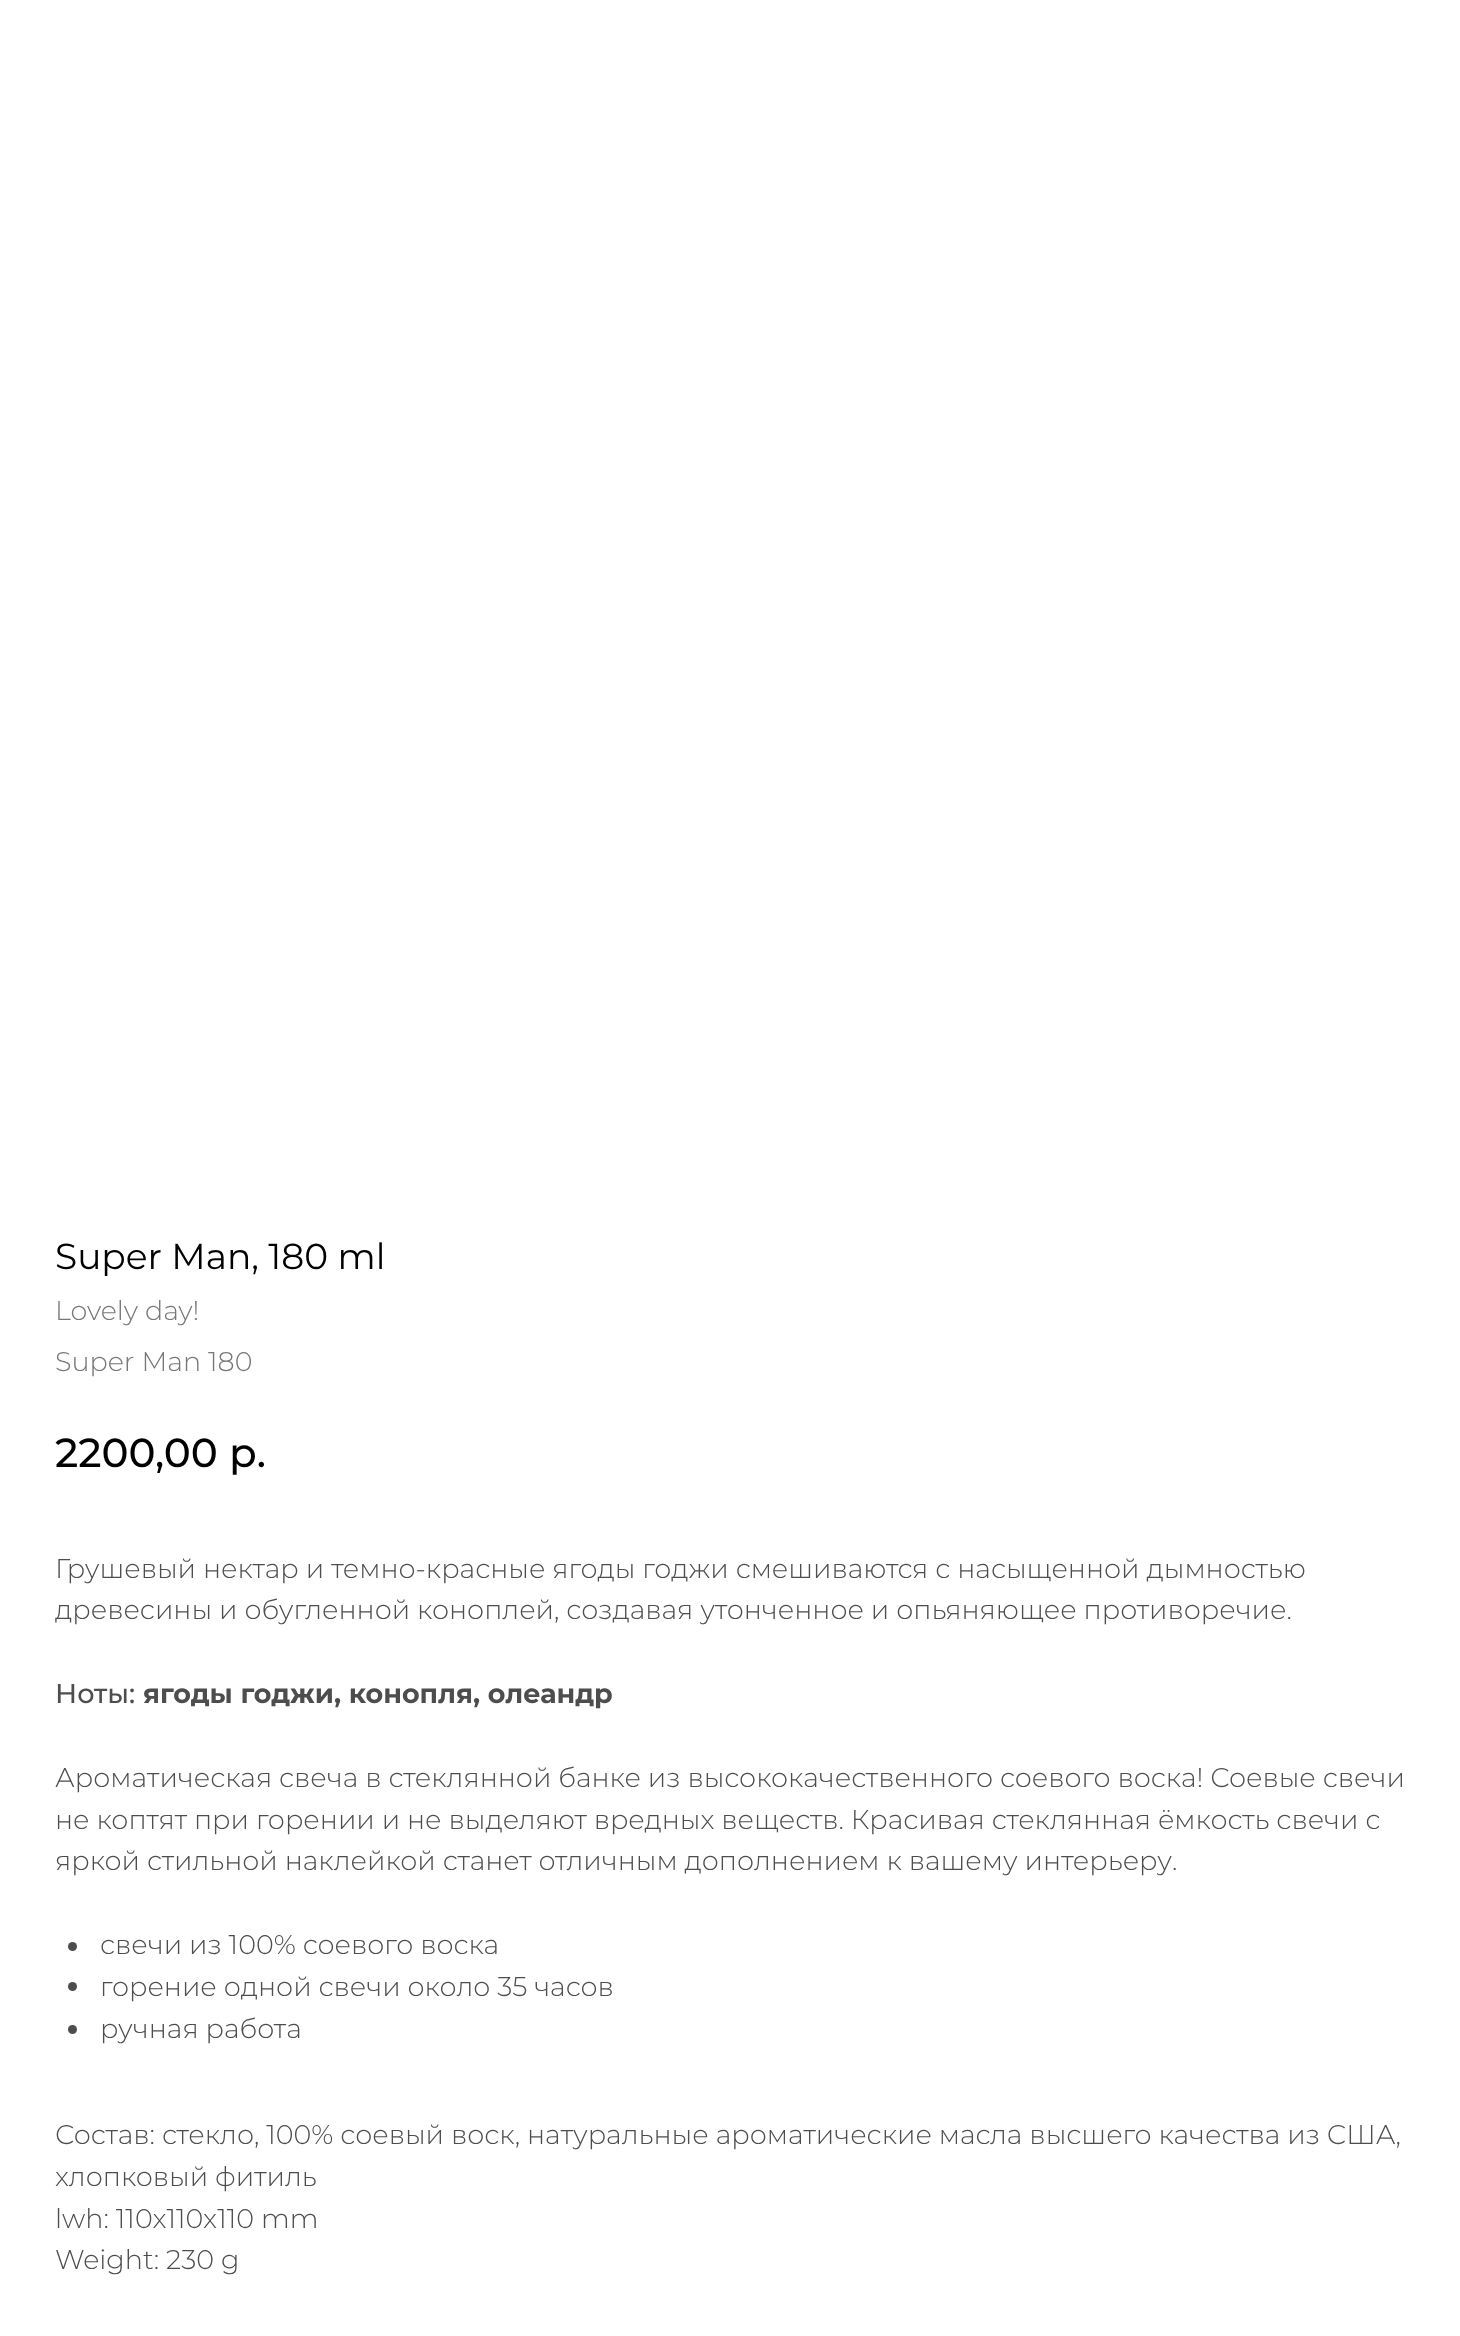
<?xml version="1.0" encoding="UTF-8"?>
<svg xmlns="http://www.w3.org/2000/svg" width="1460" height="2336">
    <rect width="100%" height="100%" fill="#FFFFFF"/>
    <text x="55" y="1269" font-family="Montserrat" font-size="36" fill="#000000">Super Man, 180 ml</text>
    <text font-family="Montserrat" font-size="27" font-weight="300" fill="#777777">
        <tspan x="55" y="1320">Lovely day!</tspan>
        <tspan x="55" y="1371">Super Man 180</tspan>
    </text>
    <text x="55" y="1467" font-family="Montserrat" font-size="40.5" font-weight="500" fill="#000000">2200,00</text>
    <text x="229" y="1467" font-family="Montserrat" font-size="40.5" font-weight="500" fill="#000000">р.</text>
    <text font-family="Montserrat" font-size="27" font-weight="300" fill="#4D4D4D">
        <tspan x="55" y="1578">Грушевый нектар и темно-красные ягоды годжи смешиваются с насыщенной дымностью</tspan>
        <tspan x="55" y="1619">древесины и обугленной коноплей, создавая утонченное и опьяняющее противоречие.</tspan>
    </text>
    <text x="55" y="1703" font-family="Montserrat" font-size="27" font-weight="500" fill="#4D4D4D">Ноты:</text>
    <text x="143" y="1703" font-family="Montserrat" font-size="27" font-weight="700" fill="#4D4D4D">ягоды годжи, конопля, олеандр</text>
    <text font-family="Montserrat" font-size="27" font-weight="300" fill="#4D4D4D">
        <tspan x="55" y="1787">Ароматическая свеча в стеклянной банке из высококачественного соевого воска! Соевые свечи</tspan>
        <tspan x="55" y="1829">не коптят при горении и не выделяют вредных веществ. Красивая стеклянная ёмкость свечи c</tspan>
        <tspan x="55" y="1870">яркой стильной наклейкой станет отличным дополнением к вашему интерьеру.</tspan>
    </text>
    <circle cx="72.5" cy="1946.5" r="4.5" fill="#4D4D4D"/>
    <text x="100" y="1954" font-family="Montserrat" font-size="27" font-weight="300" fill="#4D4D4D">свечи из 100% соевого воска</text>
    <circle cx="72.5" cy="1986.5" r="4.5" fill="#4D4D4D"/>
    <text x="100" y="1996" font-family="Montserrat" font-size="27" font-weight="300" fill="#4D4D4D">горение одной свечи около 35 часов</text>
    <circle cx="72.5" cy="2029.5" r="4.5" fill="#4D4D4D"/>
    <text x="100" y="2038" font-family="Montserrat" font-size="27" font-weight="300" fill="#4D4D4D">ручная работа</text>
    <text font-family="Montserrat" font-size="27" font-weight="300" fill="#4D4D4D">
        <tspan x="55" y="2144">Состав: стекло, 100% соевый воск, натуральные ароматические масла высшего качества из США,</tspan>
        <tspan x="55" y="2186">хлопковый фитиль</tspan>
        <tspan x="55" y="2228">lwh: 110x110x110 mm</tspan>
        <tspan x="55" y="2269">Weight: 230 g</tspan>
    </text>
</svg>
